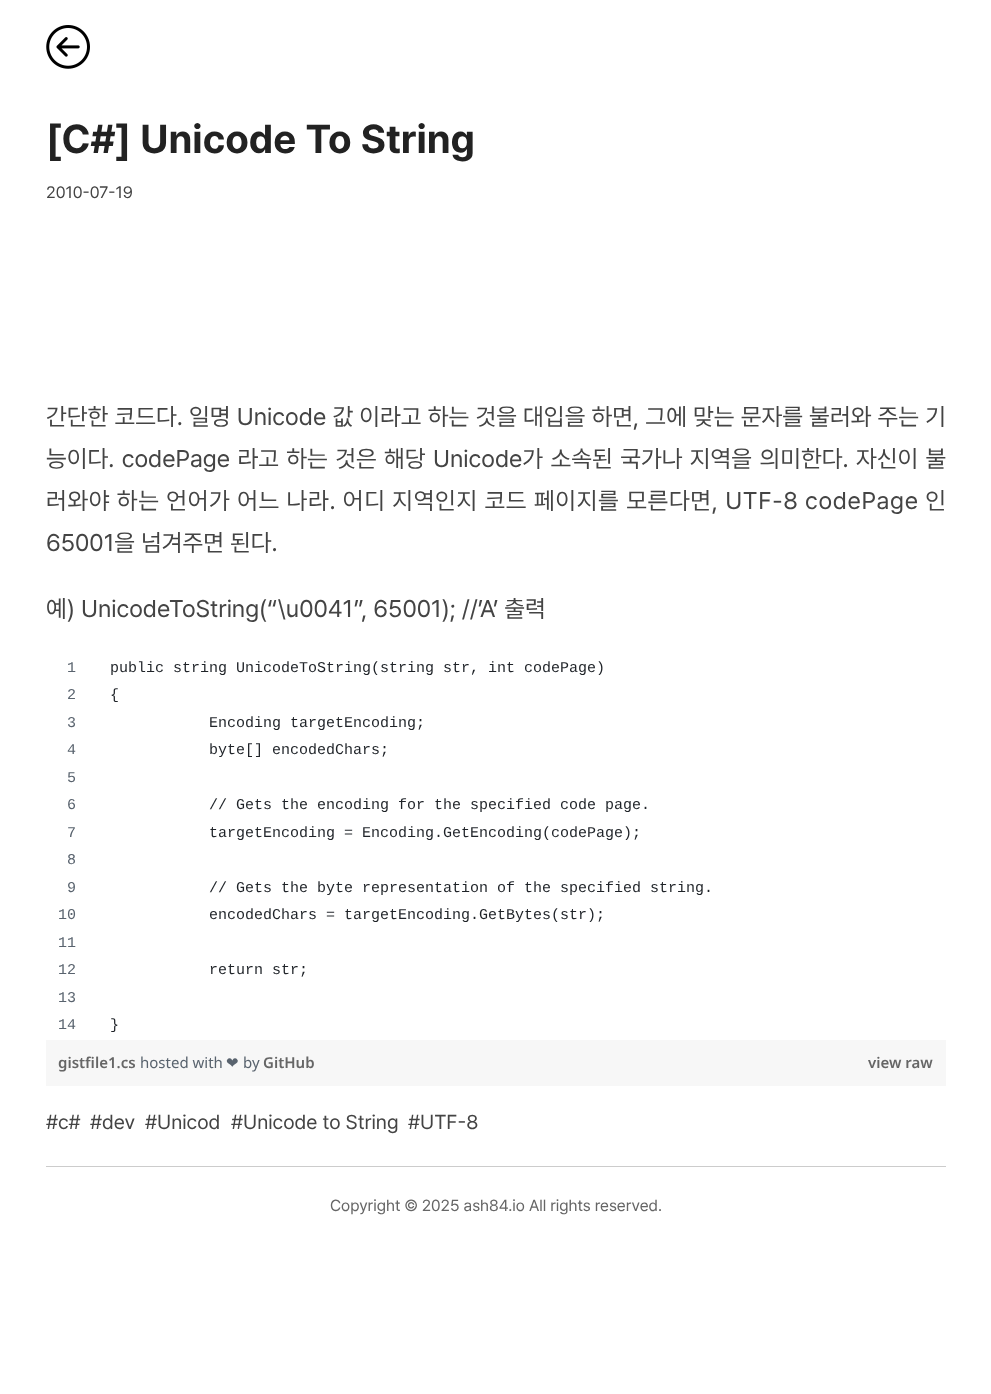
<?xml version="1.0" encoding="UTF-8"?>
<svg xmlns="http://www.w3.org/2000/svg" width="991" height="1394">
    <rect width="100%" height="100%" fill="#FFFFFF"/>
    <image x="46" y="25" width="44" height="44" href="img_01.png"/>
    <text x="46" y="153" font-family="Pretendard" font-size="40" font-weight="700" fill="#222222">[C#] Unicode To String</text>
    <text x="46" y="198" font-family="Pretendard" font-size="16.5" fill="#444444">2010-07-19</text>
    <text x="46" y="425" font-family="Pretendard" font-size="24" letter-spacing="0.05" fill="#444444">간단한 코드다. 일명 Unicode 값 이라고 하는 것을 대입을 하면, 그에 맞는 문자를 불러와 주는 기</text>
    <text x="46" y="467" word-spacing="1.4" font-family="Pretendard" font-size="24" fill="#444444">능이다. codePage 라고 하는 것은 해당 Unicode가 소속된 국가나 지역을 의미한다. 자신이 불</text>
    <text x="46" y="509" font-family="Pretendard" font-size="24" letter-spacing="0.65" fill="#444444">러와야 하는 언어가 어느 나라. 어디 지역인지 코드 페이지를 모른다면, UTF-8 codePage 인</text>
    <text x="46" y="551" font-family="Pretendard" font-size="24" fill="#444444">65001을 넘겨주면 된다.</text>
    <text x="46" y="617" font-family="Pretendard" font-size="24" fill="#444444">예) UnicodeToString(“\u0041”, 65001); //’A’ 출력</text>
    <text x="67" y="672" font-family="Liberation Mono" font-size="15" fill="#59636E">1</text>
    <text x="110" y="672" font-family="Liberation Mono" font-size="15" fill="#1F2328">public string UnicodeToString(string str, int codePage)</text>
    <text x="67" y="699" font-family="Liberation Mono" font-size="15" fill="#59636E">2</text>
    <text x="110" y="699" font-family="Liberation Mono" font-size="15" fill="#1F2328">{</text>
    <text x="67" y="727" font-family="Liberation Mono" font-size="15" fill="#59636E">3</text>
    <text x="209" y="727" font-family="Liberation Mono" font-size="15" fill="#1F2328">Encoding targetEncoding;</text>
    <text x="67" y="754" font-family="Liberation Mono" font-size="15" fill="#59636E">4</text>
    <text x="209" y="754" font-family="Liberation Mono" font-size="15" fill="#1F2328">byte[] encodedChars;</text>
    <text font-family="Liberation Mono" font-size="15" fill="#59636E">
        <tspan x="67" y="782">5</tspan>
        <tspan x="67" y="809">6</tspan>
    </text>
    <text x="209" y="809" font-family="Liberation Mono" font-size="15" fill="#1F2328">// Gets the encoding for the specified code page.</text>
    <text x="67" y="837" font-family="Liberation Mono" font-size="15" fill="#59636E">7</text>
    <text x="209" y="837" font-family="Liberation Mono" font-size="15" fill="#1F2328">targetEncoding = Encoding.GetEncoding(codePage);</text>
    <text font-family="Liberation Mono" font-size="15" fill="#59636E">
        <tspan x="67" y="864">8</tspan>
        <tspan x="67" y="892">9</tspan>
    </text>
    <text x="209" y="892" font-family="Liberation Mono" font-size="15" fill="#1F2328">// Gets the byte representation of the specified string.</text>
    <text x="58" y="919" font-family="Liberation Mono" font-size="15" fill="#59636E">10</text>
    <text x="209" y="919" font-family="Liberation Mono" font-size="15" fill="#1F2328">encodedChars = targetEncoding.GetBytes(str);</text>
    <text font-family="Liberation Mono" font-size="15" fill="#59636E">
        <tspan x="58" y="947">11</tspan>
        <tspan x="58" y="974">12</tspan>
    </text>
    <text x="209" y="974" font-family="Liberation Mono" font-size="15" fill="#1F2328">return str;</text>
    <text font-family="Liberation Mono" font-size="15" fill="#59636E">
        <tspan x="58" y="1002">13</tspan>
        <tspan x="58" y="1029">14</tspan>
    </text>
    <text x="110" y="1029" font-family="Liberation Mono" font-size="15" fill="#1F2328">}</text>
    <rect x="46" y="1040" width="900" height="46" fill="#F7F7F7"/>
    <text x="58" y="1068" font-family="Noto Sans" font-size="15" font-weight="600" fill="#666666">gistfile1.cs</text>
    <text x="140" y="1068" font-family="Noto Sans" font-size="15" fill="#59636E">hosted with</text>
    <text x="226" y="1068" font-family="DejaVu Sans" font-size="15" fill="#59636E">❤</text>
    <text x="243" y="1068" font-family="Noto Sans" font-size="15" fill="#59636E">by</text>
    <text x="263" y="1068" font-family="Noto Sans" font-size="15" font-weight="600" fill="#666666">GitHub</text>
    <text x="868" y="1068" font-family="Noto Sans" font-size="15" font-weight="600" fill="#666666">view raw</text>
    <text x="46" y="1129" font-family="Pretendard" font-size="20" fill="#444444">#c#</text>
    <text x="90" y="1129" font-family="Pretendard" font-size="20" fill="#444444">#dev</text>
    <text x="145" y="1129" font-family="Pretendard" font-size="20" fill="#444444">#Unicod</text>
    <text x="231" y="1129" font-family="Pretendard" font-size="20" fill="#444444">#Unicode to String</text>
    <text x="408" y="1129" font-family="Pretendard" font-size="20" fill="#444444">#UTF-8</text>
    <rect x="46" y="1166" width="900" height="1" fill="#CCCCCC"/>
    <text x="330" y="1211" font-family="Pretendard" font-size="16" fill="#666666">Copyright © 2025 ash84.io All rights reserved.</text>
</svg>
